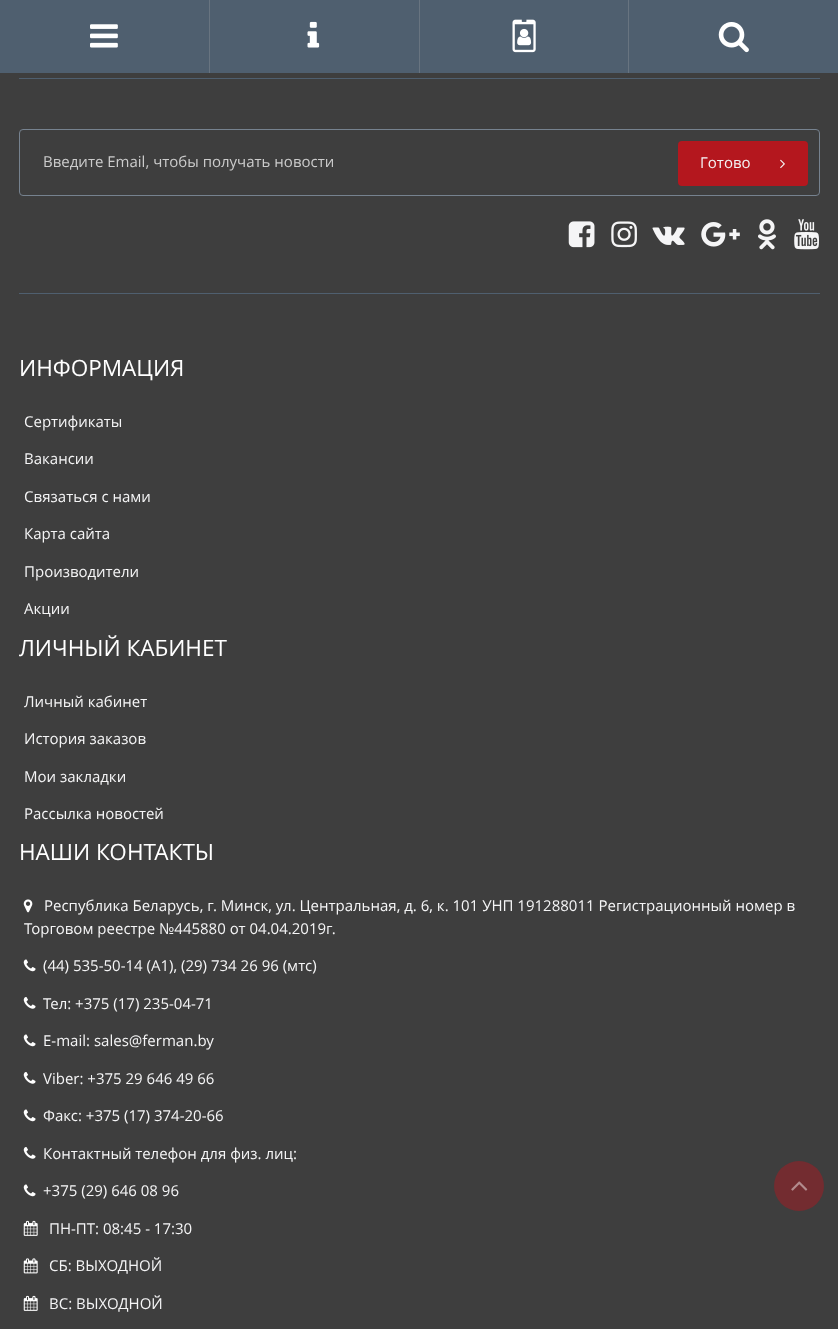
<?xml version="1.0" encoding="UTF-8"?>
<svg xmlns="http://www.w3.org/2000/svg" width="838" height="1329">
    <rect width="100%" height="100%" fill="#3E3E3E"/>
    <rect x="0" y="0" width="838" height="73" fill="#4F5F6F"/>
    <rect x="209" y="0" width="1" height="73" fill="#687480"/>
    <image x="90" y="24" width="28" height="24" href="img_01.png"/>
    <rect x="419" y="0" width="1" height="73" fill="#687480"/>
    <image x="307" y="21" width="13" height="27" href="img_02.png"/>
    <rect x="628" y="0" width="1" height="73" fill="#687480"/>
    <image x="512" y="19" width="24" height="34" href="img_03.png"/>
    <image x="718" y="22" width="31" height="31" href="img_04.png"/>
    <rect x="19" y="78" width="801" height="1" fill="#4F5F6F"/>
    <rect x="19.5" y="129.5" width="800" height="66" rx="3.5" fill="none" stroke="#76828F"/>
    <text x="43" y="167" font-family="Open Sans" font-size="15" fill="#CCCCCC">Введите Email, чтобы получать новости</text>
    <rect x="678" y="141" width="130" height="45" rx="4" fill="#B4171E"/>
    <text x="700" y="168" font-family="Open Sans" font-size="15" fill="#F5F5F6">Готово</text>
    <image x="780" y="159" width="5" height="10" href="img_05.png"/>
    <image x="568" y="221" width="27" height="27" href="img_06.png"/>
    <image x="611" y="221" width="26" height="27" href="img_07.png"/>
    <image x="652" y="226" width="33" height="19" href="img_08.png"/>
    <image x="701" y="222" width="39" height="25" href="img_09.png"/>
    <image x="758" y="219" width="18" height="31" href="img_10.png"/>
    <image x="794" y="219" width="25" height="31" href="img_11.png"/>
    <rect x="19" y="293" width="801" height="1" fill="#4F5F6F"/>
    <text x="19" y="376" font-family="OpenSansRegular" font-size="22.5" fill="#FFFFFF">ИНФОРМАЦИЯ</text>
    <text x="24" y="427" font-family="OpenSansRegular" font-size="15" fill="#F5F5F6">Сертификаты</text>
    <text x="24" y="464" font-family="OpenSansRegular" font-size="15" fill="#F5F5F6">Вакансии</text>
    <text x="24" y="502" font-family="OpenSansRegular" font-size="15" fill="#F5F5F6">Связаться с нами</text>
    <text x="24" y="539" font-family="OpenSansRegular" font-size="15" fill="#F5F5F6">Карта сайта</text>
    <text x="24" y="577" font-family="OpenSansRegular" font-size="15" fill="#F5F5F6">Производители</text>
    <text x="24" y="614" font-family="OpenSansRegular" font-size="15" fill="#F5F5F6">Акции</text>
    <text x="19" y="656" font-family="OpenSansRegular" font-size="22.5" fill="#FFFFFF">ЛИЧНЫЙ КАБИНЕТ</text>
    <text x="24" y="707" font-family="OpenSansRegular" font-size="15" fill="#F5F5F6">Личный кабинет</text>
    <text x="24" y="744" font-family="OpenSansRegular" font-size="15" fill="#F5F5F6">История заказов</text>
    <text x="24" y="782" font-family="OpenSansRegular" font-size="15" fill="#F5F5F6">Мои закладки</text>
    <text x="24" y="819" font-family="OpenSansRegular" font-size="15" fill="#F5F5F6">Рассылка новостей</text>
    <text x="19" y="860" font-family="OpenSansRegular" font-size="22.5" fill="#FFFFFF">НАШИ КОНТАКТЫ</text>
    <image x="23" y="899" width="10" height="14" href="img_12.png"/>
    <text x="44" y="911" font-family="OpenSansRegular" font-size="15" fill="#F5F5F6">Республика Беларусь, г. Минск, ул. Центральная, д. 6, к. 101 УНП 191288011 Регистрационный номер в</text>
    <text x="24" y="934" font-family="OpenSansRegular" font-size="15" fill="#F5F5F6">Торговом реестре №445880 от 04.04.2019г.</text>
    <image x="23" y="959" width="13" height="13" href="img_13.png"/>
    <text x="43" y="971" font-family="OpenSansRegular" font-size="15" fill="#F5F5F6">(44) 535-50-14 (A1), (29) 734 26 96 (мтс)</text>
    <image x="23" y="997" width="13" height="12" href="img_14.png"/>
    <text x="43" y="1009" font-family="OpenSansRegular" font-size="15" fill="#F5F5F6">Тел: +375 (17) 235-04-71</text>
    <image x="23" y="1034" width="13" height="13" href="img_13.png"/>
    <text x="43" y="1046" font-family="OpenSansRegular" font-size="15" fill="#F5F5F6">E-mail: sales@ferman.by</text>
    <image x="23" y="1072" width="13" height="12" href="img_14.png"/>
    <text x="43" y="1084" font-family="OpenSansRegular" font-size="15" fill="#F5F5F6">Viber: +375 29 646 49 66</text>
    <image x="23" y="1109" width="13" height="13" href="img_13.png"/>
    <text x="43" y="1121" font-family="OpenSansRegular" font-size="15" fill="#F5F5F6">Факс: +375 (17) 374-20-66</text>
    <image x="23" y="1147" width="13" height="12" href="img_14.png"/>
    <text x="43" y="1159" font-family="OpenSansRegular" font-size="15" fill="#F5F5F6">Контактный телефон для физ. лиц:</text>
    <image x="23" y="1184" width="13" height="13" href="img_13.png"/>
    <text x="43" y="1196" font-family="OpenSansRegular" font-size="15" fill="#F5F5F6">+375 (29) 646 08 96</text>
    <image x="23" y="1220" width="15" height="16" href="img_15.png"/>
    <text x="49" y="1234" font-family="OpenSansRegular" font-size="15" fill="#F5F5F6">ПН-ПТ: 08:45 - 17:30</text>
    <image x="23" y="1258" width="15" height="16" href="img_16.png"/>
    <text x="49" y="1271" font-family="OpenSansRegular" font-size="15" fill="#F5F5F6">СБ: ВЫХОДНОЙ</text>
    <image x="23" y="1295" width="15" height="16" href="img_15.png"/>
    <text x="49" y="1309" font-family="OpenSansRegular" font-size="15" fill="#F5F5F6">ВС: ВЫХОДНОЙ</text>
    <circle cx="799" cy="1186" r="25" fill="#732C30"/>
    <image x="791" y="1181" width="17" height="10" href="img_17.png"/>
</svg>
